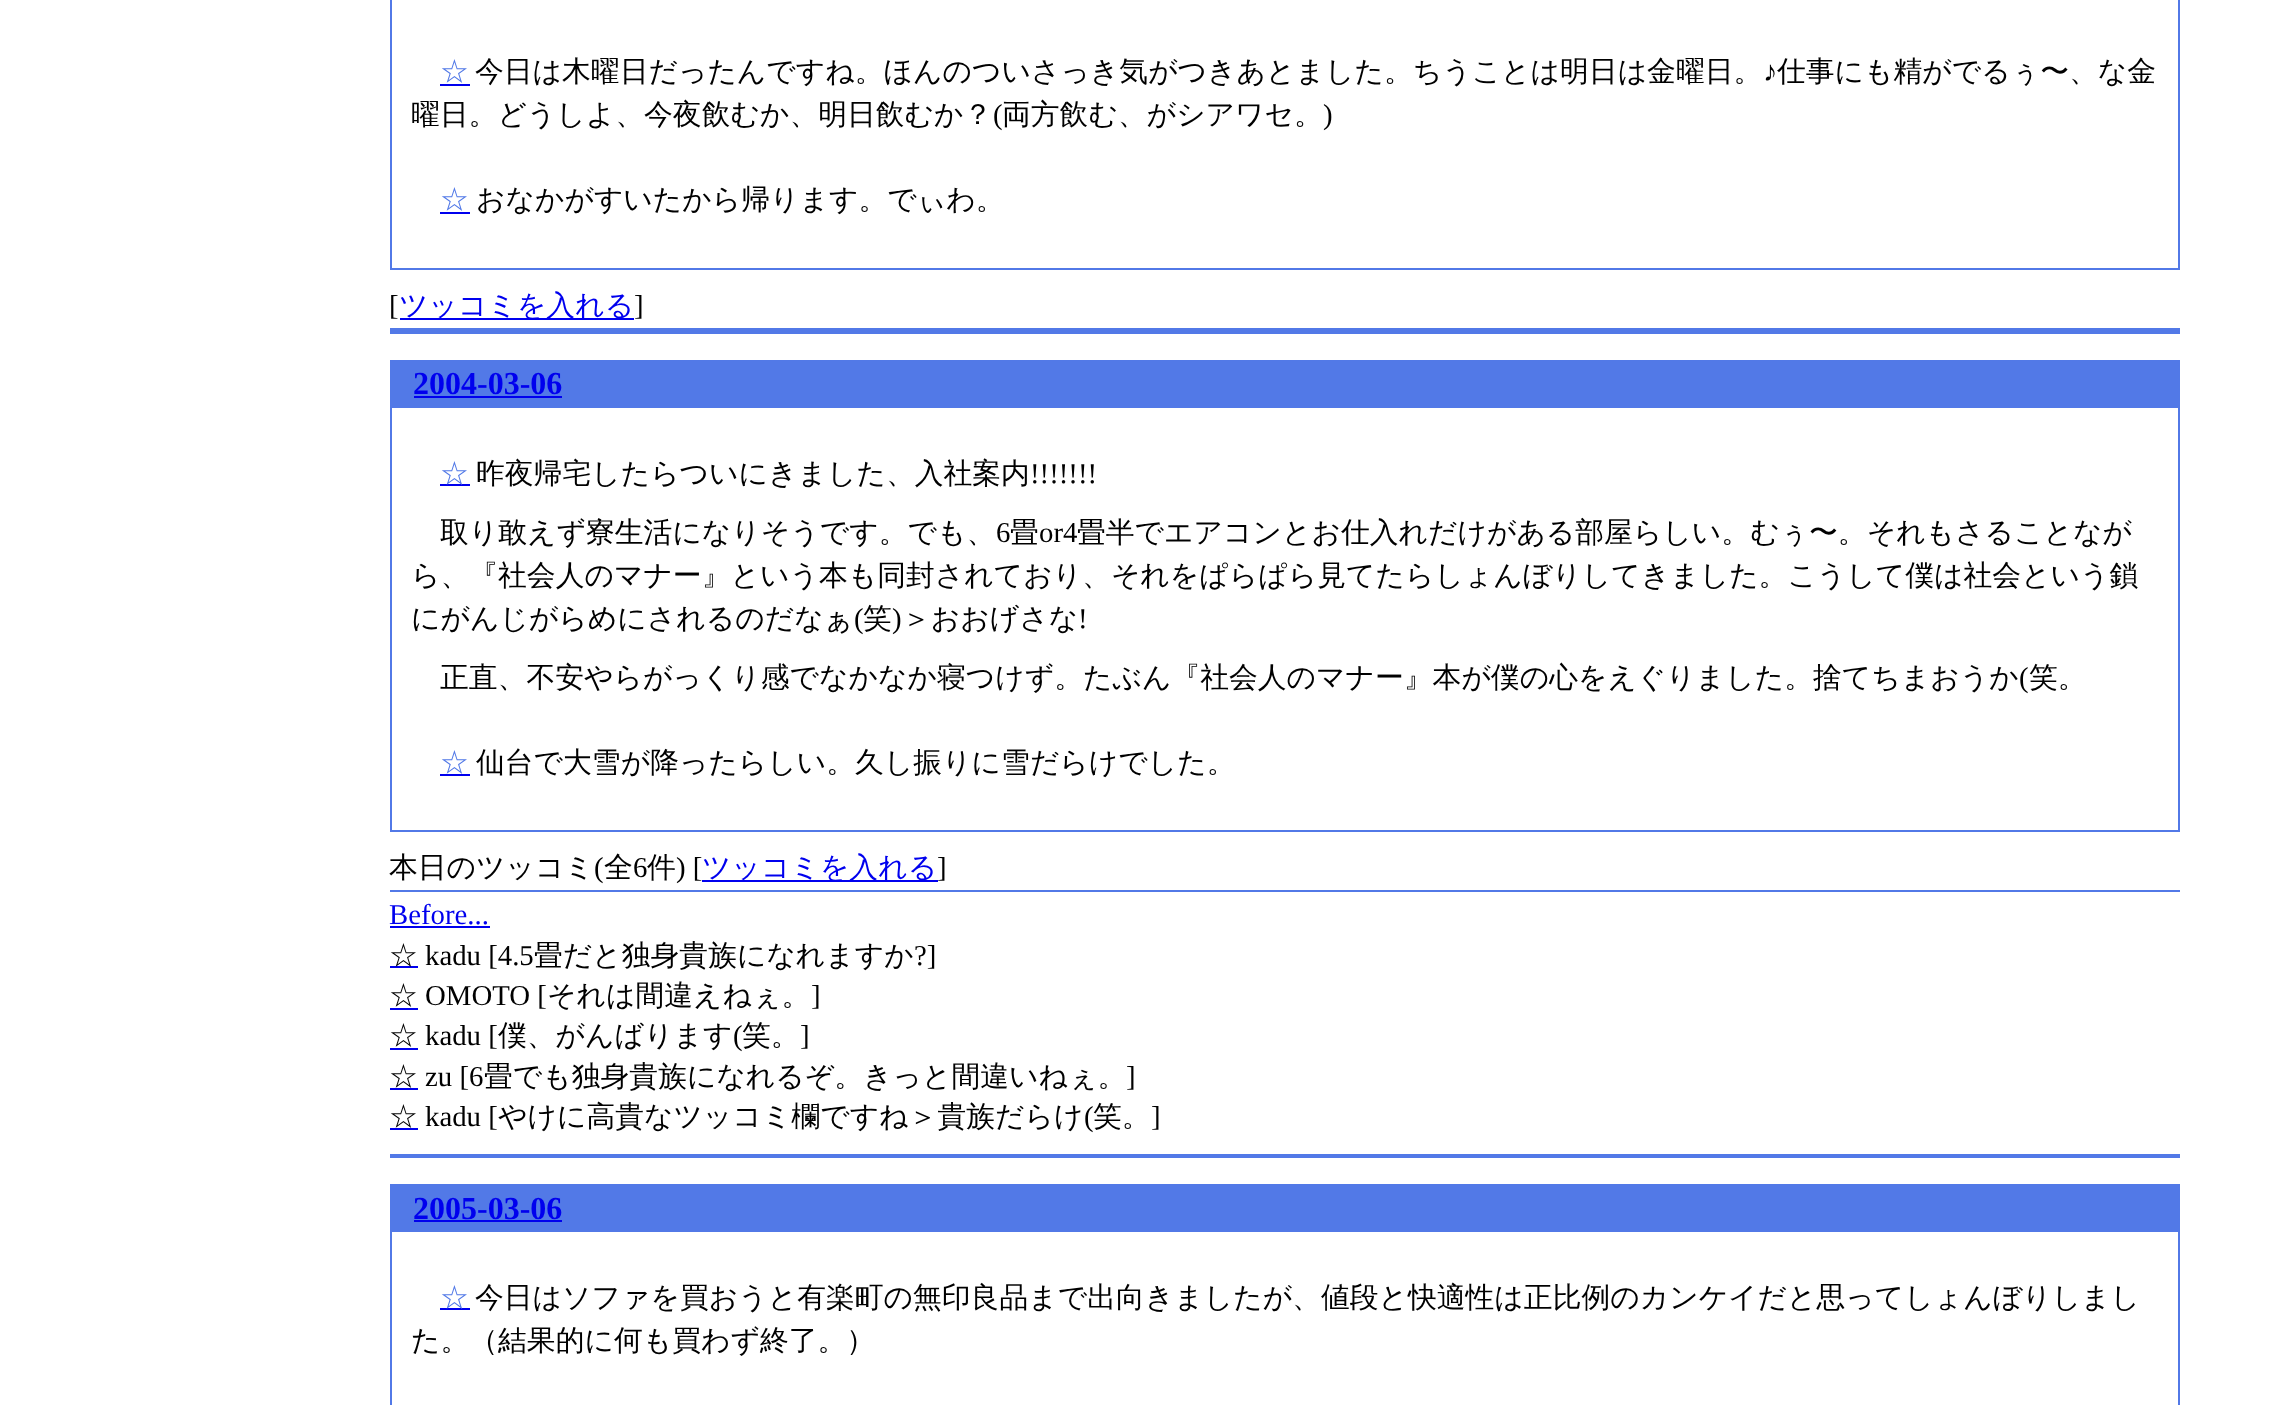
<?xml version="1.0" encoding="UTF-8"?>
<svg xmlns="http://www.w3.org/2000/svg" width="2293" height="1405">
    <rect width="100%" height="100%" fill="#FFFFFF"/>
    <rect x="391" y="-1" width="1788" height="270" fill="none" stroke="#5279E7" stroke-width="2"/>
    <text x="440" y="81" font-family="WenQuanYi Zen Hei" font-size="28.8" font-weight="500" fill="#5279E7">☆</text>
    <rect x="440" y="84" width="30" height="2" fill="#0000EE"/>
    <text x="475" y="81" font-family="WenQuanYi Zen Hei" font-size="28.8" font-weight="500" fill="#000000">今日は木曜日だったんですね。ほんのついさっき気がつきあとました。ちうことは明日は金曜日。</text>
    <text x="1763" y="81" font-family="Liberation Serif" font-size="28.8" fill="#000000">♪</text>
    <text x="1777" y="81" font-family="WenQuanYi Zen Hei" font-size="28.8" font-weight="500" fill="#000000">仕事にも精がでるぅ〜、な金</text>
    <text x="411" y="124" font-family="WenQuanYi Zen Hei" font-size="28.8" font-weight="500" fill="#000000">曜日。どうしよ、今夜飲むか、明日飲むか？</text>
    <text x="993" y="124" font-family="Liberation Serif" font-size="28.8" fill="#000000">(</text>
    <text x="1002" y="124" font-family="WenQuanYi Zen Hei" font-size="28.8" font-weight="500" fill="#000000">両方飲む、がシアワセ。</text>
    <text x="1323" y="124" font-family="Liberation Serif" font-size="28.8" fill="#000000">)</text>
    <text x="440" y="209" font-family="WenQuanYi Zen Hei" font-size="28.8" font-weight="500" fill="#5279E7">☆</text>
    <rect x="440" y="212" width="30" height="2" fill="#0000EE"/>
    <text x="476" y="209" font-family="WenQuanYi Zen Hei" font-size="28.8" font-weight="500" fill="#000000">おなかがすいたから帰ります。でぃわ。</text>
    <rect x="390" y="328" width="1790" height="6" fill="#5279E7"/>
    <text x="389" y="315" font-family="Liberation Serif" font-size="28.8" fill="#000000">[</text>
    <rect x="400" y="318" width="234" height="2" fill="#0000EE"/>
    <text x="399" y="315" font-family="WenQuanYi Zen Hei" font-size="28.8" font-weight="500" fill="#0000EE">ツッコミを入れる</text>
    <text x="634" y="315" font-family="Liberation Serif" font-size="28.8" fill="#000000">]</text>
    <rect x="390" y="360" width="1790" height="46" fill="#5279E7"/>
    <text x="413" y="394" font-family="Liberation Serif" font-size="32" font-weight="700" fill="#0000EE">2004-03-06</text>
    <rect x="414" y="396" width="148" height="2" fill="#0000EE"/>
    <rect x="391" y="407" width="1788" height="424" fill="none" stroke="#5279E7" stroke-width="2"/>
    <rect x="440" y="484" width="30" height="2" fill="#0000EE"/>
    <text x="440" y="483" font-family="WenQuanYi Zen Hei" font-size="28.8" font-weight="500" fill="#5279E7">☆</text>
    <text x="476" y="483" font-family="WenQuanYi Zen Hei" font-size="28.8" font-weight="500" fill="#000000">昨夜帰宅したらついにきました、入社案内</text>
    <text x="1030" y="483" font-family="Liberation Serif" font-size="28.8" fill="#000000">!!!!!!!</text>
    <text x="440" y="542" font-family="WenQuanYi Zen Hei" font-size="28.8" font-weight="500" fill="#000000">取り敢えず寮生活になりそうです。でも、</text>
    <text x="996" y="542" font-family="Liberation Serif" font-size="28.8" fill="#000000">6</text>
    <text x="1010" y="542" font-family="WenQuanYi Zen Hei" font-size="28.8" font-weight="500" fill="#000000">畳</text>
    <text x="1039" y="542" font-family="Liberation Serif" font-size="28.8" fill="#000000">or4</text>
    <text x="1077" y="542" font-family="WenQuanYi Zen Hei" font-size="28.8" font-weight="500" fill="#000000">畳半でエアコンとお仕入れだけがある部屋らしい。むぅ〜。それもさることなが</text>
    <text font-family="WenQuanYi Zen Hei" font-size="28.8" font-weight="500" fill="#000000">
        <tspan x="411" y="585">ら、『社会人のマナー』という本も同封されており、それをぱらぱら見てたらしょんぼりしてきました。こうして僕は社会という鎖</tspan>
        <tspan x="411" y="628">にがんじがらめにされるのだなぁ</tspan>
    </text>
    <text x="854" y="628" font-family="Liberation Serif" font-size="28.8" fill="#000000">(</text>
    <text x="863" y="628" font-family="WenQuanYi Zen Hei" font-size="28.8" font-weight="500" fill="#000000">笑</text>
    <text x="892" y="628" font-family="Liberation Serif" font-size="28.8" fill="#000000">)</text>
    <text x="902" y="628" font-family="WenQuanYi Zen Hei" font-size="28.8" font-weight="500" fill="#000000">＞おおげさな</text>
    <text x="1078" y="628" font-family="Liberation Serif" font-size="28.8" fill="#000000">!</text>
    <text x="440" y="687" font-family="WenQuanYi Zen Hei" font-size="28.8" font-weight="500" fill="#000000">正直、不安やらがっくり感でなかなか寝つけず。たぶん『社会人のマナー』本が僕の心をえぐりました。捨てちまおうか</text>
    <text x="2019" y="687" font-family="Liberation Serif" font-size="28.8" fill="#000000">(</text>
    <text x="2029" y="687" font-family="WenQuanYi Zen Hei" font-size="28.8" font-weight="500" fill="#000000">笑。</text>
    <text x="440" y="772" font-family="WenQuanYi Zen Hei" font-size="28.8" font-weight="500" fill="#5279E7">☆</text>
    <rect x="440" y="774" width="30" height="2" fill="#0000EE"/>
    <text x="476" y="772" font-family="WenQuanYi Zen Hei" font-size="28.8" font-weight="500" fill="#000000">仙台で大雪が降ったらしい。久し振りに雪だらけでした。</text>
    <rect x="390" y="890" width="1790" height="2" fill="#5279E7"/>
    <text x="389" y="877" font-family="WenQuanYi Zen Hei" font-size="28.8" font-weight="500" fill="#000000">本日のツッコミ</text>
    <text x="594" y="877" font-family="Liberation Serif" font-size="28.8" fill="#000000">(</text>
    <text x="604" y="877" font-family="WenQuanYi Zen Hei" font-size="28.8" font-weight="500" fill="#000000">全</text>
    <text x="633" y="877" font-family="Liberation Serif" font-size="28.8" fill="#000000">6</text>
    <text x="647" y="877" font-family="WenQuanYi Zen Hei" font-size="28.8" font-weight="500" fill="#000000">件</text>
    <text x="676" y="877" font-family="Liberation Serif" font-size="28.8" fill="#000000">) [</text>
    <rect x="702" y="880" width="236" height="2" fill="#0000EE"/>
    <text x="702" y="877" font-family="WenQuanYi Zen Hei" font-size="28.8" font-weight="500" fill="#0000EE">ツッコミを入れる</text>
    <text x="937" y="877" font-family="Liberation Serif" font-size="28.8" fill="#000000">]</text>
    <text x="389" y="924" font-family="Liberation Serif" font-size="28.8" fill="#0000EE">Before...</text>
    <rect x="390" y="926" width="100" height="2" fill="#0000EE"/>
    <rect x="390" y="966" width="28" height="2" fill="#0000EE"/>
    <text x="389" y="965" font-family="WenQuanYi Zen Hei" font-size="28.8" font-weight="500" fill="#000000">☆</text>
    <text x="425" y="965" font-family="Liberation Serif" font-size="28.8" fill="#000000">kadu [4.5</text>
    <text x="534" y="965" font-family="WenQuanYi Zen Hei" font-size="28.8" font-weight="500" fill="#000000">畳だと独身貴族になれますか</text>
    <text x="914" y="965" font-family="Liberation Serif" font-size="28.8" fill="#000000">?]</text>
    <text x="389" y="1005" font-family="WenQuanYi Zen Hei" font-size="28.8" font-weight="500" fill="#000000">☆</text>
    <rect x="390" y="1008" width="28" height="2" fill="#0000EE"/>
    <text x="425" y="1005" font-family="Liberation Serif" font-size="28.8" fill="#000000">OMOTO [</text>
    <text x="547" y="1005" font-family="WenQuanYi Zen Hei" font-size="28.8" font-weight="500" fill="#000000">それは間違えねぇ。</text>
    <text x="811" y="1005" font-family="Liberation Serif" font-size="28.8" fill="#000000">]</text>
    <text x="389" y="1045" font-family="WenQuanYi Zen Hei" font-size="28.8" font-weight="500" fill="#000000">☆</text>
    <rect x="390" y="1048" width="28" height="2" fill="#0000EE"/>
    <text x="425" y="1045" font-family="Liberation Serif" font-size="28.8" fill="#000000">kadu [</text>
    <text x="498" y="1045" font-family="WenQuanYi Zen Hei" font-size="28.8" font-weight="500" fill="#000000">僕、がんばります</text>
    <text x="733" y="1045" font-family="Liberation Serif" font-size="28.8" fill="#000000">(</text>
    <text x="742" y="1045" font-family="WenQuanYi Zen Hei" font-size="28.8" font-weight="500" fill="#000000">笑。</text>
    <text x="800" y="1045" font-family="Liberation Serif" font-size="28.8" fill="#000000">]</text>
    <text x="389" y="1086" font-family="WenQuanYi Zen Hei" font-size="28.8" font-weight="500" fill="#000000">☆</text>
    <rect x="390" y="1088" width="28" height="2" fill="#0000EE"/>
    <text x="425" y="1086" font-family="Liberation Serif" font-size="28.8" fill="#000000">zu [6</text>
    <text x="484" y="1086" font-family="WenQuanYi Zen Hei" font-size="28.8" font-weight="500" fill="#000000">畳でも独身貴族になれるぞ。きっと間違いねぇ。</text>
    <text x="1126" y="1086" font-family="Liberation Serif" font-size="28.8" fill="#000000">]</text>
    <text x="389" y="1126" font-family="WenQuanYi Zen Hei" font-size="28.8" font-weight="500" fill="#000000">☆</text>
    <rect x="390" y="1128" width="28" height="2" fill="#0000EE"/>
    <text x="425" y="1126" font-family="Liberation Serif" font-size="28.8" fill="#000000">kadu [</text>
    <text x="498" y="1126" font-family="WenQuanYi Zen Hei" font-size="28.8" font-weight="500" fill="#000000">やけに高貴なツッコミ欄ですね＞貴族だらけ</text>
    <text x="1084" y="1126" font-family="Liberation Serif" font-size="28.8" fill="#000000">(</text>
    <text x="1093" y="1126" font-family="WenQuanYi Zen Hei" font-size="28.8" font-weight="500" fill="#000000">笑。</text>
    <text x="1151" y="1126" font-family="Liberation Serif" font-size="28.8" fill="#000000">]</text>
    <rect x="390" y="1154" width="1790" height="4" fill="#5279E7"/>
    <rect x="390" y="1184" width="1790" height="46" fill="#5279E7"/>
    <text x="413" y="1219" font-family="Liberation Serif" font-size="32" font-weight="700" fill="#0000EE">2005-03-06</text>
    <rect x="414" y="1220" width="148" height="2" fill="#0000EE"/>
    <rect x="391" y="1231" width="1788" height="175" fill="none" stroke="#5279E7" stroke-width="2"/>
    <rect x="440" y="1308" width="30" height="2" fill="#0000EE"/>
    <text x="440" y="1307" font-family="WenQuanYi Zen Hei" font-size="28.8" font-weight="500" fill="#5279E7">☆</text>
    <text x="475" y="1307" font-family="WenQuanYi Zen Hei" font-size="28.8" font-weight="500" fill="#000000">今日はソファを買おうと有楽町の無印良品まで出向きましたが、値段と快適性は正比例のカンケイだと思ってしょんぼりしまし</text>
    <text x="411" y="1350" font-family="WenQuanYi Zen Hei" font-size="28.8" font-weight="500" fill="#000000">た。（結果的に何も買わず終了。）</text>
</svg>
